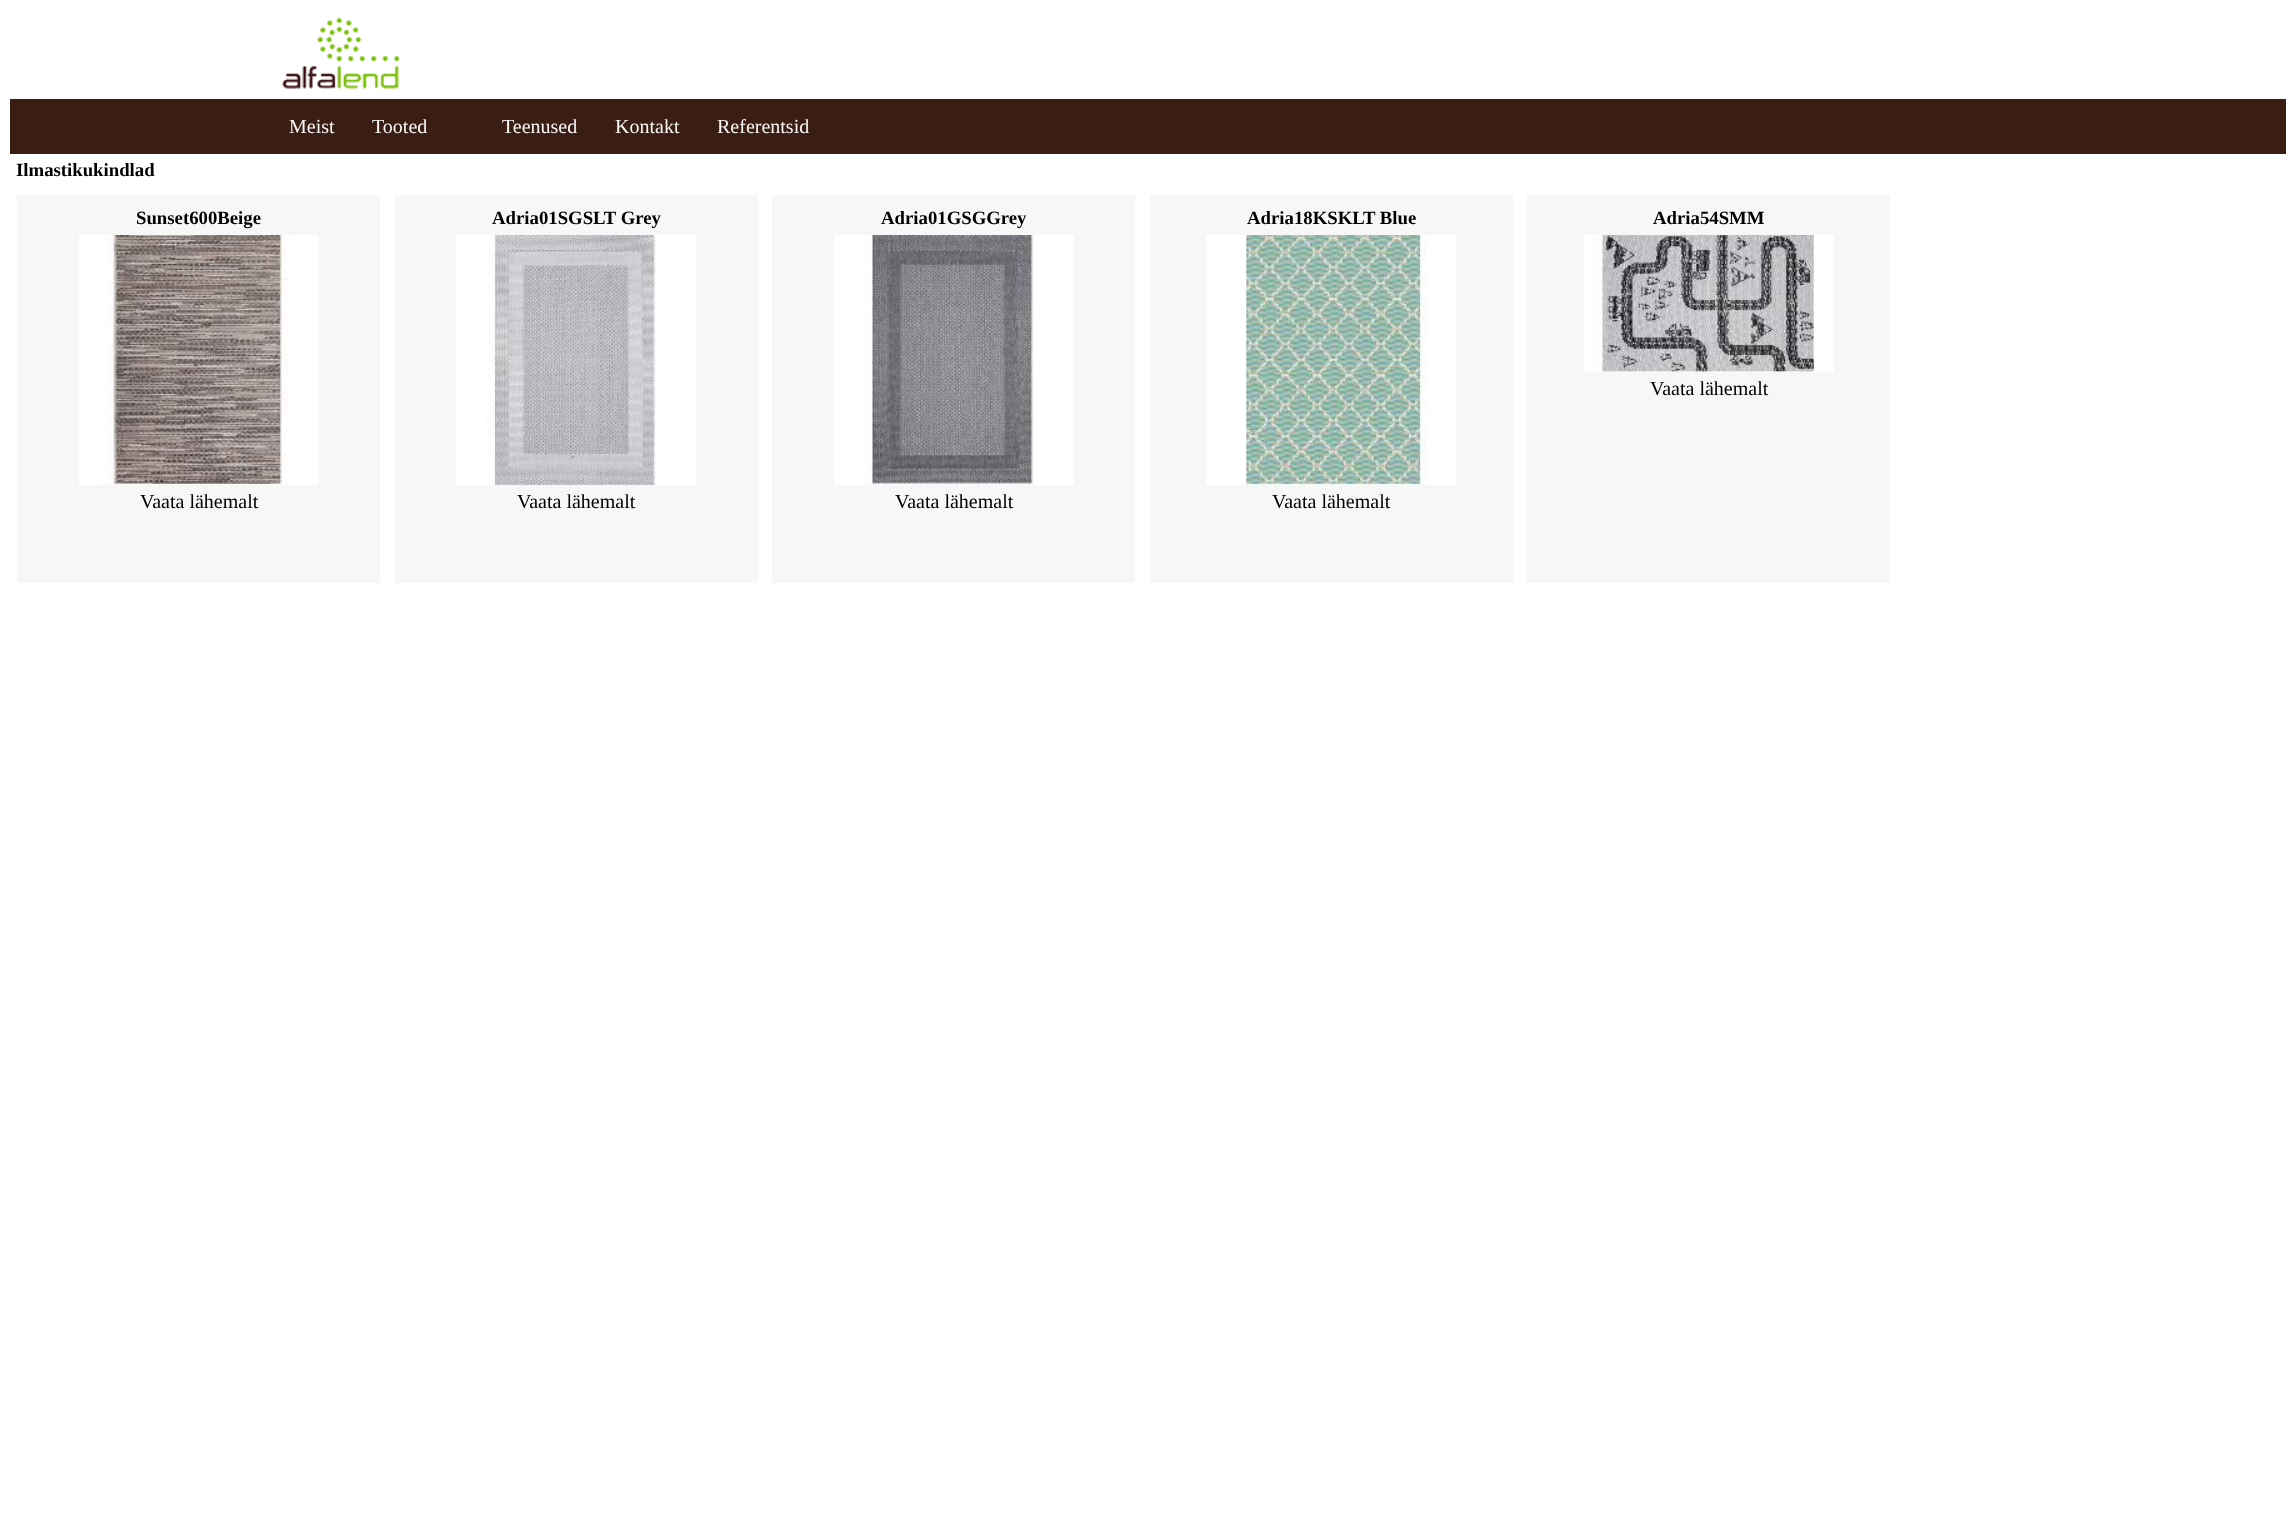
<?xml version="1.0" encoding="UTF-8"?>
<svg xmlns="http://www.w3.org/2000/svg" width="2296" height="1522">
    <rect width="100%" height="100%" fill="#FFFFFF"/>
    <image x="282" y="17" width="119" height="72" href="img_01.png"/>
    <rect x="10" y="99" width="2276" height="55" fill="#3A1E13"/>
    <text x="289" y="133" font-family="Liberation Serif" font-size="20" fill="#F7F7F7">Meist</text>
    <text x="372" y="133" font-family="Liberation Serif" font-size="20" fill="#F7F7F7">Tooted</text>
    <text x="502" y="133" font-family="Liberation Serif" font-size="20" fill="#F7F7F7">Teenused</text>
    <text x="615" y="133" font-family="Liberation Serif" font-size="20" fill="#F7F7F7">Kontakt</text>
    <text x="717" y="133" font-family="Liberation Serif" font-size="20" fill="#F7F7F7">Referentsid</text>
    <text x="16" y="176" font-family="Liberation Serif" font-size="18.75" font-weight="700" fill="#000000">Ilmastikukindlad</text>
    <rect x="17" y="195" width="363" height="388" fill="#F7F7F7"/>
    <text x="136" y="224" font-family="Liberation Serif" font-size="18.75" font-weight="700" fill="#000000">Sunset600Beige</text>
    <image x="79" y="235" width="240" height="250" href="img_02.png"/>
    <text x="140" y="508" font-family="Liberation Serif" font-size="20" fill="#000000">Vaata lähemalt</text>
    <rect x="395" y="195" width="363" height="388" fill="#F7F7F7"/>
    <text x="492" y="224" font-family="Liberation Serif" font-size="18.75" font-weight="700" fill="#000000">Adria01SGSLT Grey</text>
    <image x="456" y="235" width="240" height="250" href="img_03.png"/>
    <text x="517" y="508" font-family="Liberation Serif" font-size="20" fill="#000000">Vaata lähemalt</text>
    <rect x="772" y="195" width="363" height="388" fill="#F7F7F7"/>
    <text x="881" y="224" font-family="Liberation Serif" font-size="18.75" font-weight="700" fill="#000000">Adria01GSGGrey</text>
    <image x="834" y="235" width="240" height="250" href="img_04.png"/>
    <text x="895" y="508" font-family="Liberation Serif" font-size="20" fill="#000000">Vaata lähemalt</text>
    <rect x="1150" y="195" width="363" height="388" fill="#F7F7F7"/>
    <text x="1247" y="224" font-family="Liberation Serif" font-size="18.75" font-weight="700" fill="#000000">Adria18KSKLT Blue</text>
    <image x="1206" y="235" width="250" height="250" href="img_05.png"/>
    <text x="1272" y="508" font-family="Liberation Serif" font-size="20" fill="#000000">Vaata lähemalt</text>
    <rect x="1527" y="195" width="363" height="388" fill="#F7F7F7"/>
    <text x="1653" y="224" font-family="Liberation Serif" font-size="18.75" font-weight="700" fill="#000000">Adria54SMM</text>
    <image x="1584" y="235" width="250" height="138" href="img_06.png"/>
    <text x="1650" y="395" font-family="Liberation Serif" font-size="20" fill="#000000">Vaata lähemalt</text>
</svg>
